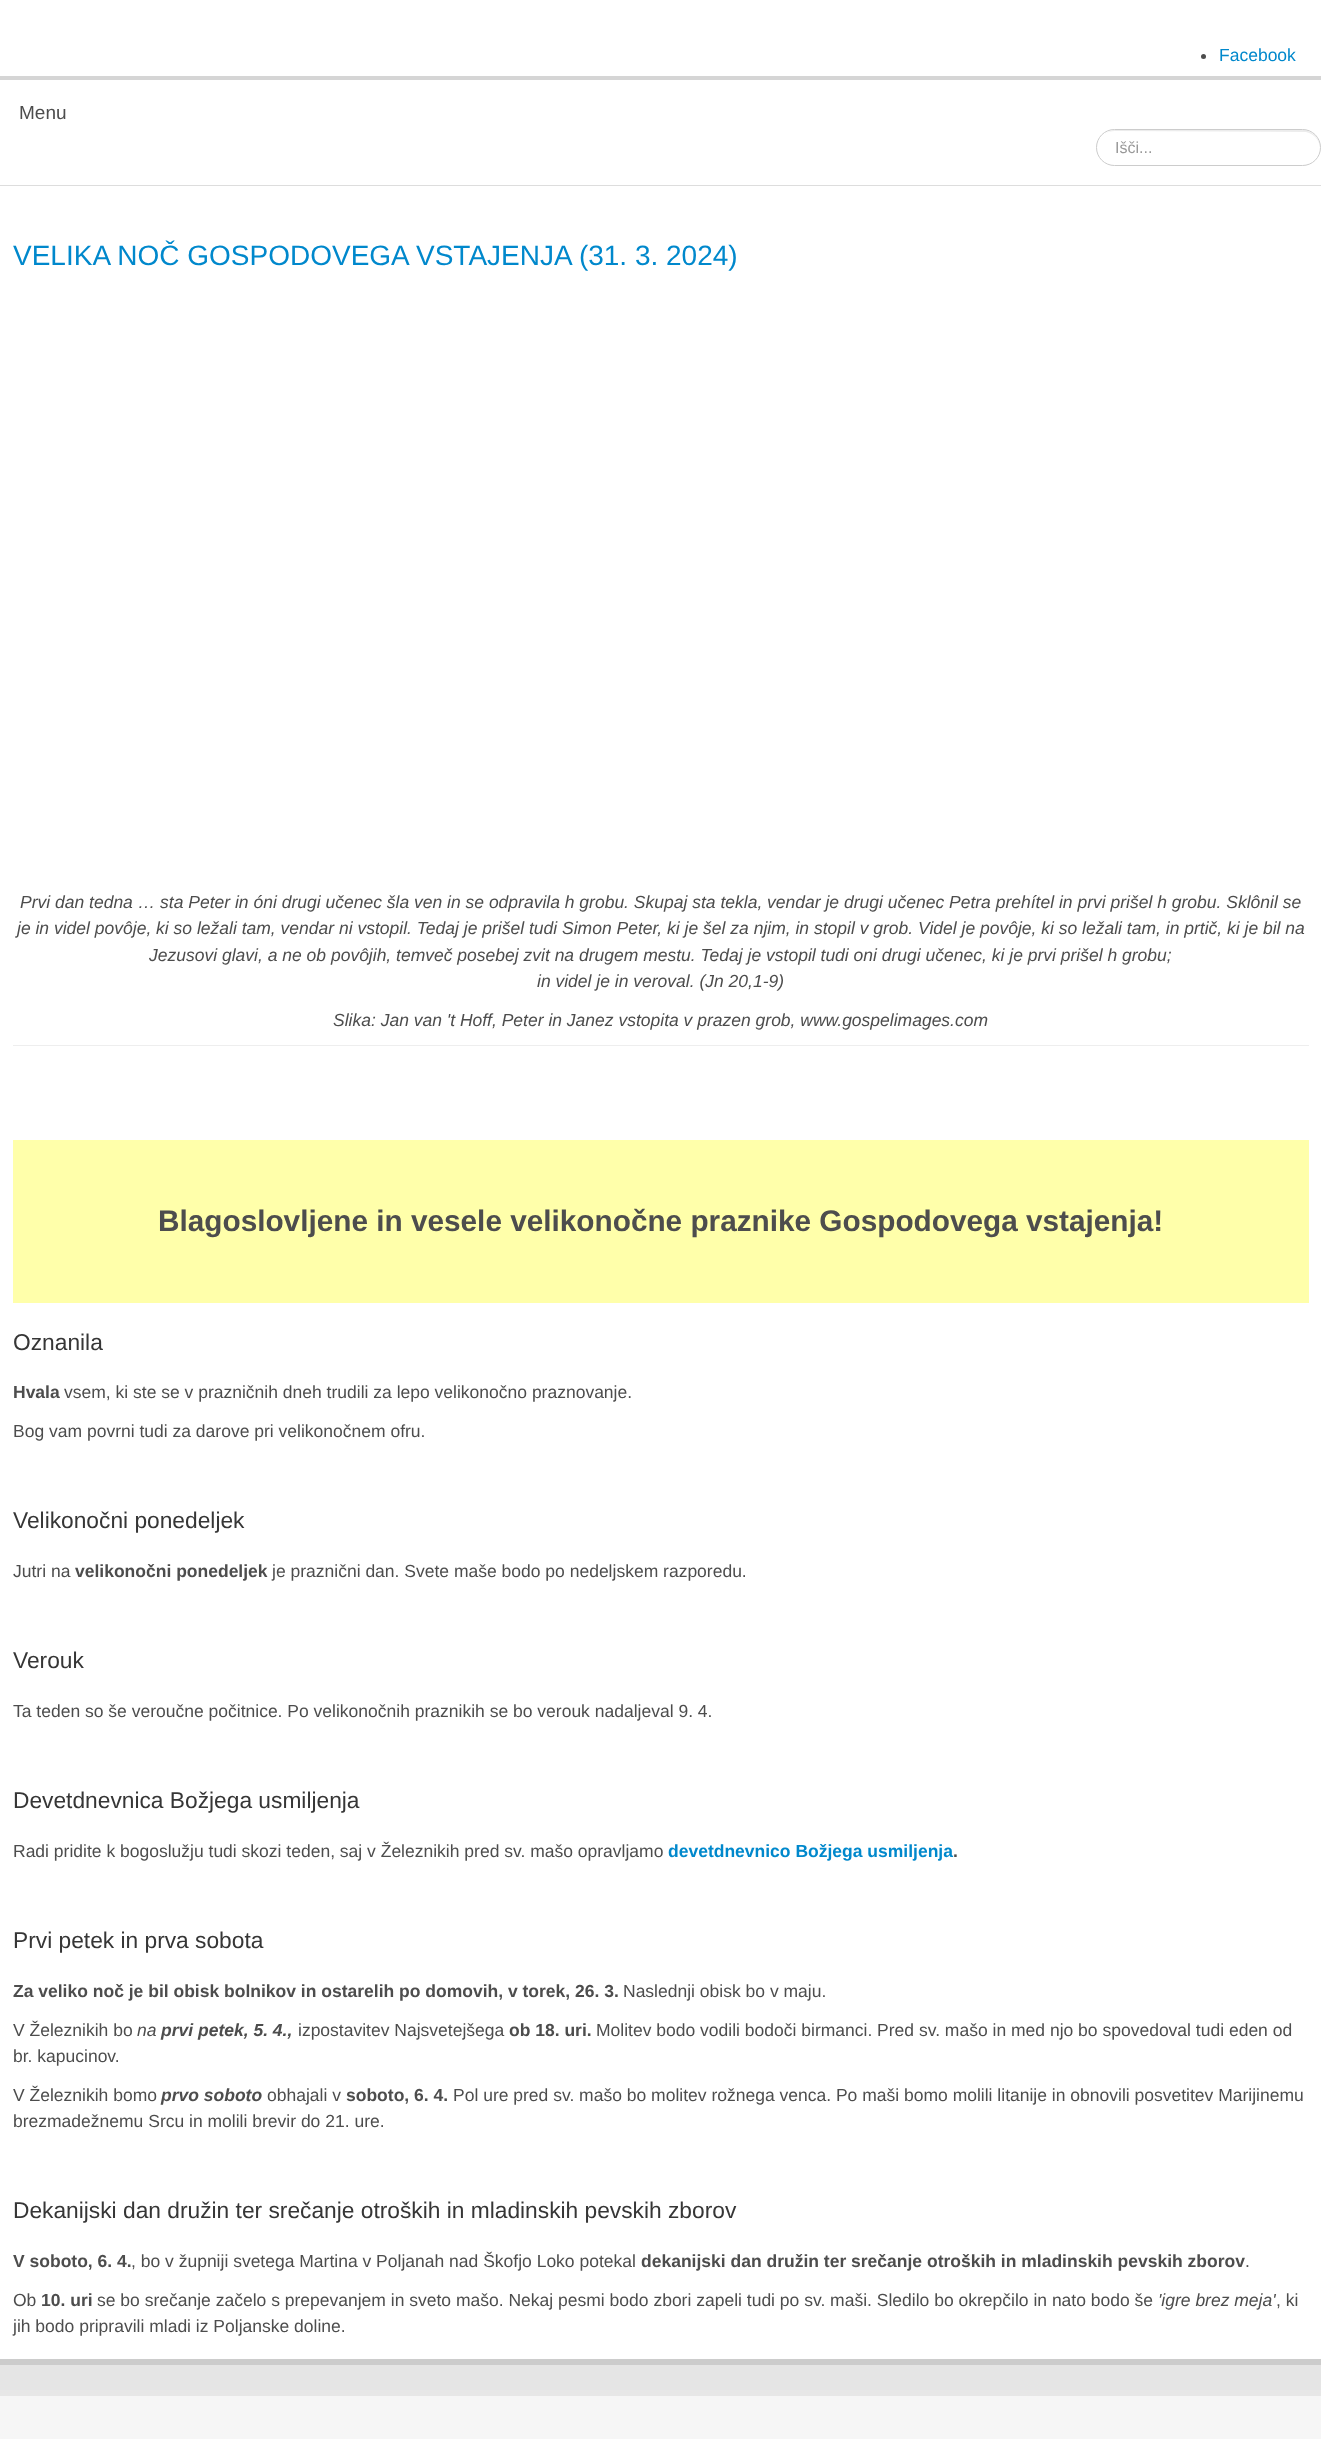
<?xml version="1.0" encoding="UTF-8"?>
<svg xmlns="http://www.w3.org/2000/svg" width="1321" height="2439">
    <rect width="100%" height="100%" fill="#FFFFFF"/>
    <circle cx="1203.5" cy="56.5" r="2.5" fill="#4D4D4D"/>
    <text x="1219" y="61" font-family="Liberation Sans" font-size="17.5" fill="#0088CC">Facebook</text>
    <rect x="0" y="76" width="1321" height="4" fill="#D5D5D5"/>
    <rect x="0" y="185" width="1321" height="1" fill="#DDDDDD"/>
    <text x="19" y="119" font-family="Liberation Sans" font-size="19" fill="#4D4D4D">Menu</text>
    <path d="M 1115 131 L 1306 132 C 1315 134 1320 141 1320 149 V 148 C 1320 138 1312 130 1302 130 H 1116 C 1108 130 1102 135 1099 141 C 1102 135 1107 131 1115 131 Z" fill="#ECECEC"/>
    <rect x="1096.5" y="129.5" width="224" height="36" rx="18" fill="none" stroke="#CCCCCC"/>
    <text x="1115" y="153" font-family="Liberation Sans" font-size="16" fill="#999999">Išči...</text>
    <rect x="0" y="2365" width="1321" height="25" fill="#E5E5E5"/>
    <rect x="0" y="2359" width="1321" height="6" fill="#CCCCCC"/>
    <text x="13" y="265" font-family="Liberation Sans" font-size="28" fill="#0088CC">VELIKA NOČ GOSPODOVEGA VSTAJENJA (31. 3. 2024)</text>
    <text x="20" y="908" font-family="Liberation Sans" font-size="17.5" font-style="italic" fill="#4D4D4D">Prvi dan tedna … sta Peter in óni drugi učenec šla ven in se odpravila h grobu. Skupaj sta tekla, vendar je drugi učenec Petra prehítel in prvi prišel h grobu. Sklônil se</text>
    <text x="17" y="934" font-family="Liberation Sans" font-size="17.5" font-style="italic" fill="#4D4D4D">je in videl povôje, ki so ležali tam, vendar ni vstopil. Tedaj je prišel tudi Simon Peter, ki je šel za njim, in stopil v grob. Videl je povôje, ki so ležali tam, in prtič, ki je bil na</text>
    <text x="149" y="961" font-family="Liberation Sans" font-size="17.5" font-style="italic" fill="#4D4D4D">Jezusovi glavi, a ne ob povôjih, temveč posebej zvit na drugem mestu. Tedaj je vstopil tudi oni drugi učenec, ki je prvi prišel h grobu;</text>
    <text x="537" y="987" font-family="Liberation Sans" font-size="17.5" font-style="italic" fill="#4D4D4D">in videl je in veroval. (Jn 20,1-9)</text>
    <text x="333" y="1026" font-family="Liberation Sans" font-size="17.5" font-style="italic" fill="#4D4D4D">Slika: Jan van 't Hoff, Peter in Janez vstopita v prazen grob, www.gospelimages.com</text>
    <rect x="13" y="1045" width="1296" height="1" fill="#EEEEEE"/>
    <rect x="13" y="1140" width="1296" height="163" fill="#FFFFAA"/>
    <text x="158" y="1231" font-family="Liberation Sans" font-size="29.75" font-weight="700" fill="#4D4D4D">Blagoslovljene in vesele velikonočne praznike Gospodovega vstajenja!</text>
    <text x="13" y="1350" font-family="Liberation Sans" font-size="22.75" fill="#363636">Oznanila</text>
    <text x="13" y="1398" font-family="Liberation Sans" font-size="17.5" font-weight="700" fill="#4D4D4D">Hvala</text>
    <text x="64" y="1398" font-family="Liberation Sans" font-size="17.5" fill="#4D4D4D">vsem, ki ste se v prazničnih dneh trudili za lepo velikonočno praznovanje.</text>
    <text x="13" y="1437" font-family="Liberation Sans" font-size="17.5" fill="#4D4D4D">Bog vam povrni tudi za darove pri velikonočnem ofru.</text>
    <text x="13" y="1528" font-family="Liberation Sans" font-size="22.75" fill="#363636">Velikonočni ponedeljek</text>
    <text x="13" y="1577" font-family="Liberation Sans" font-size="17.5" fill="#4D4D4D">Jutri na</text>
    <text x="75" y="1577" font-family="Liberation Sans" font-size="17.5" font-weight="700" fill="#4D4D4D">velikonočni ponedeljek</text>
    <text x="272" y="1577" font-family="Liberation Sans" font-size="17.5" fill="#4D4D4D">je praznični dan. Svete maše bodo po nedeljskem razporedu.</text>
    <text x="13" y="1668" font-family="Liberation Sans" font-size="22.75" fill="#363636">Verouk</text>
    <text x="13" y="1717" font-family="Liberation Sans" font-size="17.5" fill="#4D4D4D">Ta teden so še veroučne počitnice. Po velikonočnih praznikih se bo verouk nadaljeval 9. 4.</text>
    <text x="13" y="1808" font-family="Liberation Sans" font-size="22.75" fill="#363636">Devetdnevnica Božjega usmiljenja</text>
    <text x="13" y="1857" font-family="Liberation Sans" font-size="17.5" fill="#4D4D4D">Radi pridite k bogoslužju tudi skozi teden, saj v Železnikih pred sv. mašo opravljamo</text>
    <text x="668" y="1857" font-family="Liberation Sans" font-size="17.5" font-weight="700" fill="#0088CC">devetdnevnico Božjega usmiljenja</text>
    <text x="953" y="1857" font-family="Liberation Sans" font-size="17.5" font-weight="700" fill="#4D4D4D">.</text>
    <text x="13" y="1948" font-family="Liberation Sans" font-size="22.75" fill="#363636">Prvi petek in prva sobota</text>
    <text x="13" y="1997" font-family="Liberation Sans" font-size="17.5" font-weight="700" fill="#4D4D4D">Za veliko noč je bil obisk bolnikov in ostarelih po domovih, v torek, 26. 3.</text>
    <text x="623" y="1997" font-family="Liberation Sans" font-size="17.5" fill="#4D4D4D">Naslednji obisk bo v maju.</text>
    <text x="13" y="2036" font-family="Liberation Sans" font-size="17.5" fill="#4D4D4D">V Železnikih bo</text>
    <text x="137" y="2036" font-family="Liberation Sans" font-size="17.5" font-style="italic" fill="#4D4D4D">na</text>
    <text x="161" y="2036" font-family="Liberation Sans" font-size="17.5" font-weight="700" font-style="italic" fill="#4D4D4D">prvi petek, 5. 4.,</text>
    <text x="298" y="2036" font-family="Liberation Sans" font-size="17.5" fill="#4D4D4D">izpostavitev Najsvetejšega</text>
    <text x="509" y="2036" font-family="Liberation Sans" font-size="17.5" font-weight="700" fill="#4D4D4D">ob 18. uri.</text>
    <text x="596" y="2036" font-family="Liberation Sans" font-size="17.5" fill="#4D4D4D">Molitev bodo vodili bodoči birmanci. Pred sv. mašo in med njo bo spovedoval tudi eden od</text>
    <text x="13" y="2062" font-family="Liberation Sans" font-size="17.5" fill="#4D4D4D">br. kapucinov.</text>
    <text x="13" y="2101" font-family="Liberation Sans" font-size="17.5" fill="#4D4D4D">V Železnikih bomo</text>
    <text x="161" y="2101" font-family="Liberation Sans" font-size="17.5" font-weight="700" font-style="italic" fill="#4D4D4D">prvo soboto</text>
    <text x="267" y="2101" font-family="Liberation Sans" font-size="17.5" fill="#4D4D4D">obhajali v</text>
    <text x="346" y="2101" font-family="Liberation Sans" font-size="17.5" font-weight="700" fill="#4D4D4D">soboto, 6. 4.</text>
    <text x="453" y="2101" font-family="Liberation Sans" font-size="17.5" fill="#4D4D4D">Pol ure pred sv. mašo bo molitev rožnega venca. Po maši bomo molili litanije in obnovili posvetitev Marijinemu</text>
    <text x="13" y="2127" font-family="Liberation Sans" font-size="17.5" fill="#4D4D4D">brezmadežnemu Srcu in molili brevir do 21. ure.</text>
    <text x="13" y="2218" font-family="Liberation Sans" font-size="22.75" fill="#363636">Dekanijski dan družin ter srečanje otroških in mladinskih pevskih zborov</text>
    <text x="13" y="2267" font-family="Liberation Sans" font-size="17.5" font-weight="700" fill="#4D4D4D">V soboto, 6. 4.</text>
    <text x="131" y="2267" font-family="Liberation Sans" font-size="17.5" fill="#4D4D4D">, bo v župniji svetega Martina v Poljanah nad Škofjo Loko potekal</text>
    <text x="641" y="2267" font-family="Liberation Sans" font-size="17.5" font-weight="700" fill="#4D4D4D">dekanijski dan družin ter srečanje otroških in mladinskih pevskih zborov</text>
    <text x="1245" y="2267" font-family="Liberation Sans" font-size="17.5" fill="#4D4D4D">.</text>
    <text x="13" y="2306" font-family="Liberation Sans" font-size="17.5" fill="#4D4D4D">Ob</text>
    <text x="41" y="2306" font-family="Liberation Sans" font-size="17.5" font-weight="700" fill="#4D4D4D">10. uri</text>
    <text x="97" y="2306" font-family="Liberation Sans" font-size="17.5" fill="#4D4D4D">se bo srečanje začelo s prepevanjem in sveto mašo. Nekaj pesmi bodo zbori zapeli tudi po sv. maši. Sledilo bo okrepčilo in nato bodo še</text>
    <text x="1158" y="2306" font-family="Liberation Sans" font-size="17.5" font-style="italic" fill="#4D4D4D">'igre brez meja'</text>
    <text x="1276" y="2306" font-family="Liberation Sans" font-size="17.5" fill="#4D4D4D">, ki</text>
    <text x="13" y="2332" font-family="Liberation Sans" font-size="17.5" fill="#4D4D4D">jih bodo pripravili mladi iz Poljanske doline.</text>
    <rect x="0" y="2396" width="1321" height="43" fill="#F6F6F6"/>
    <rect x="0" y="2390" width="1321" height="6" fill="#E7E7E7"/>
</svg>
